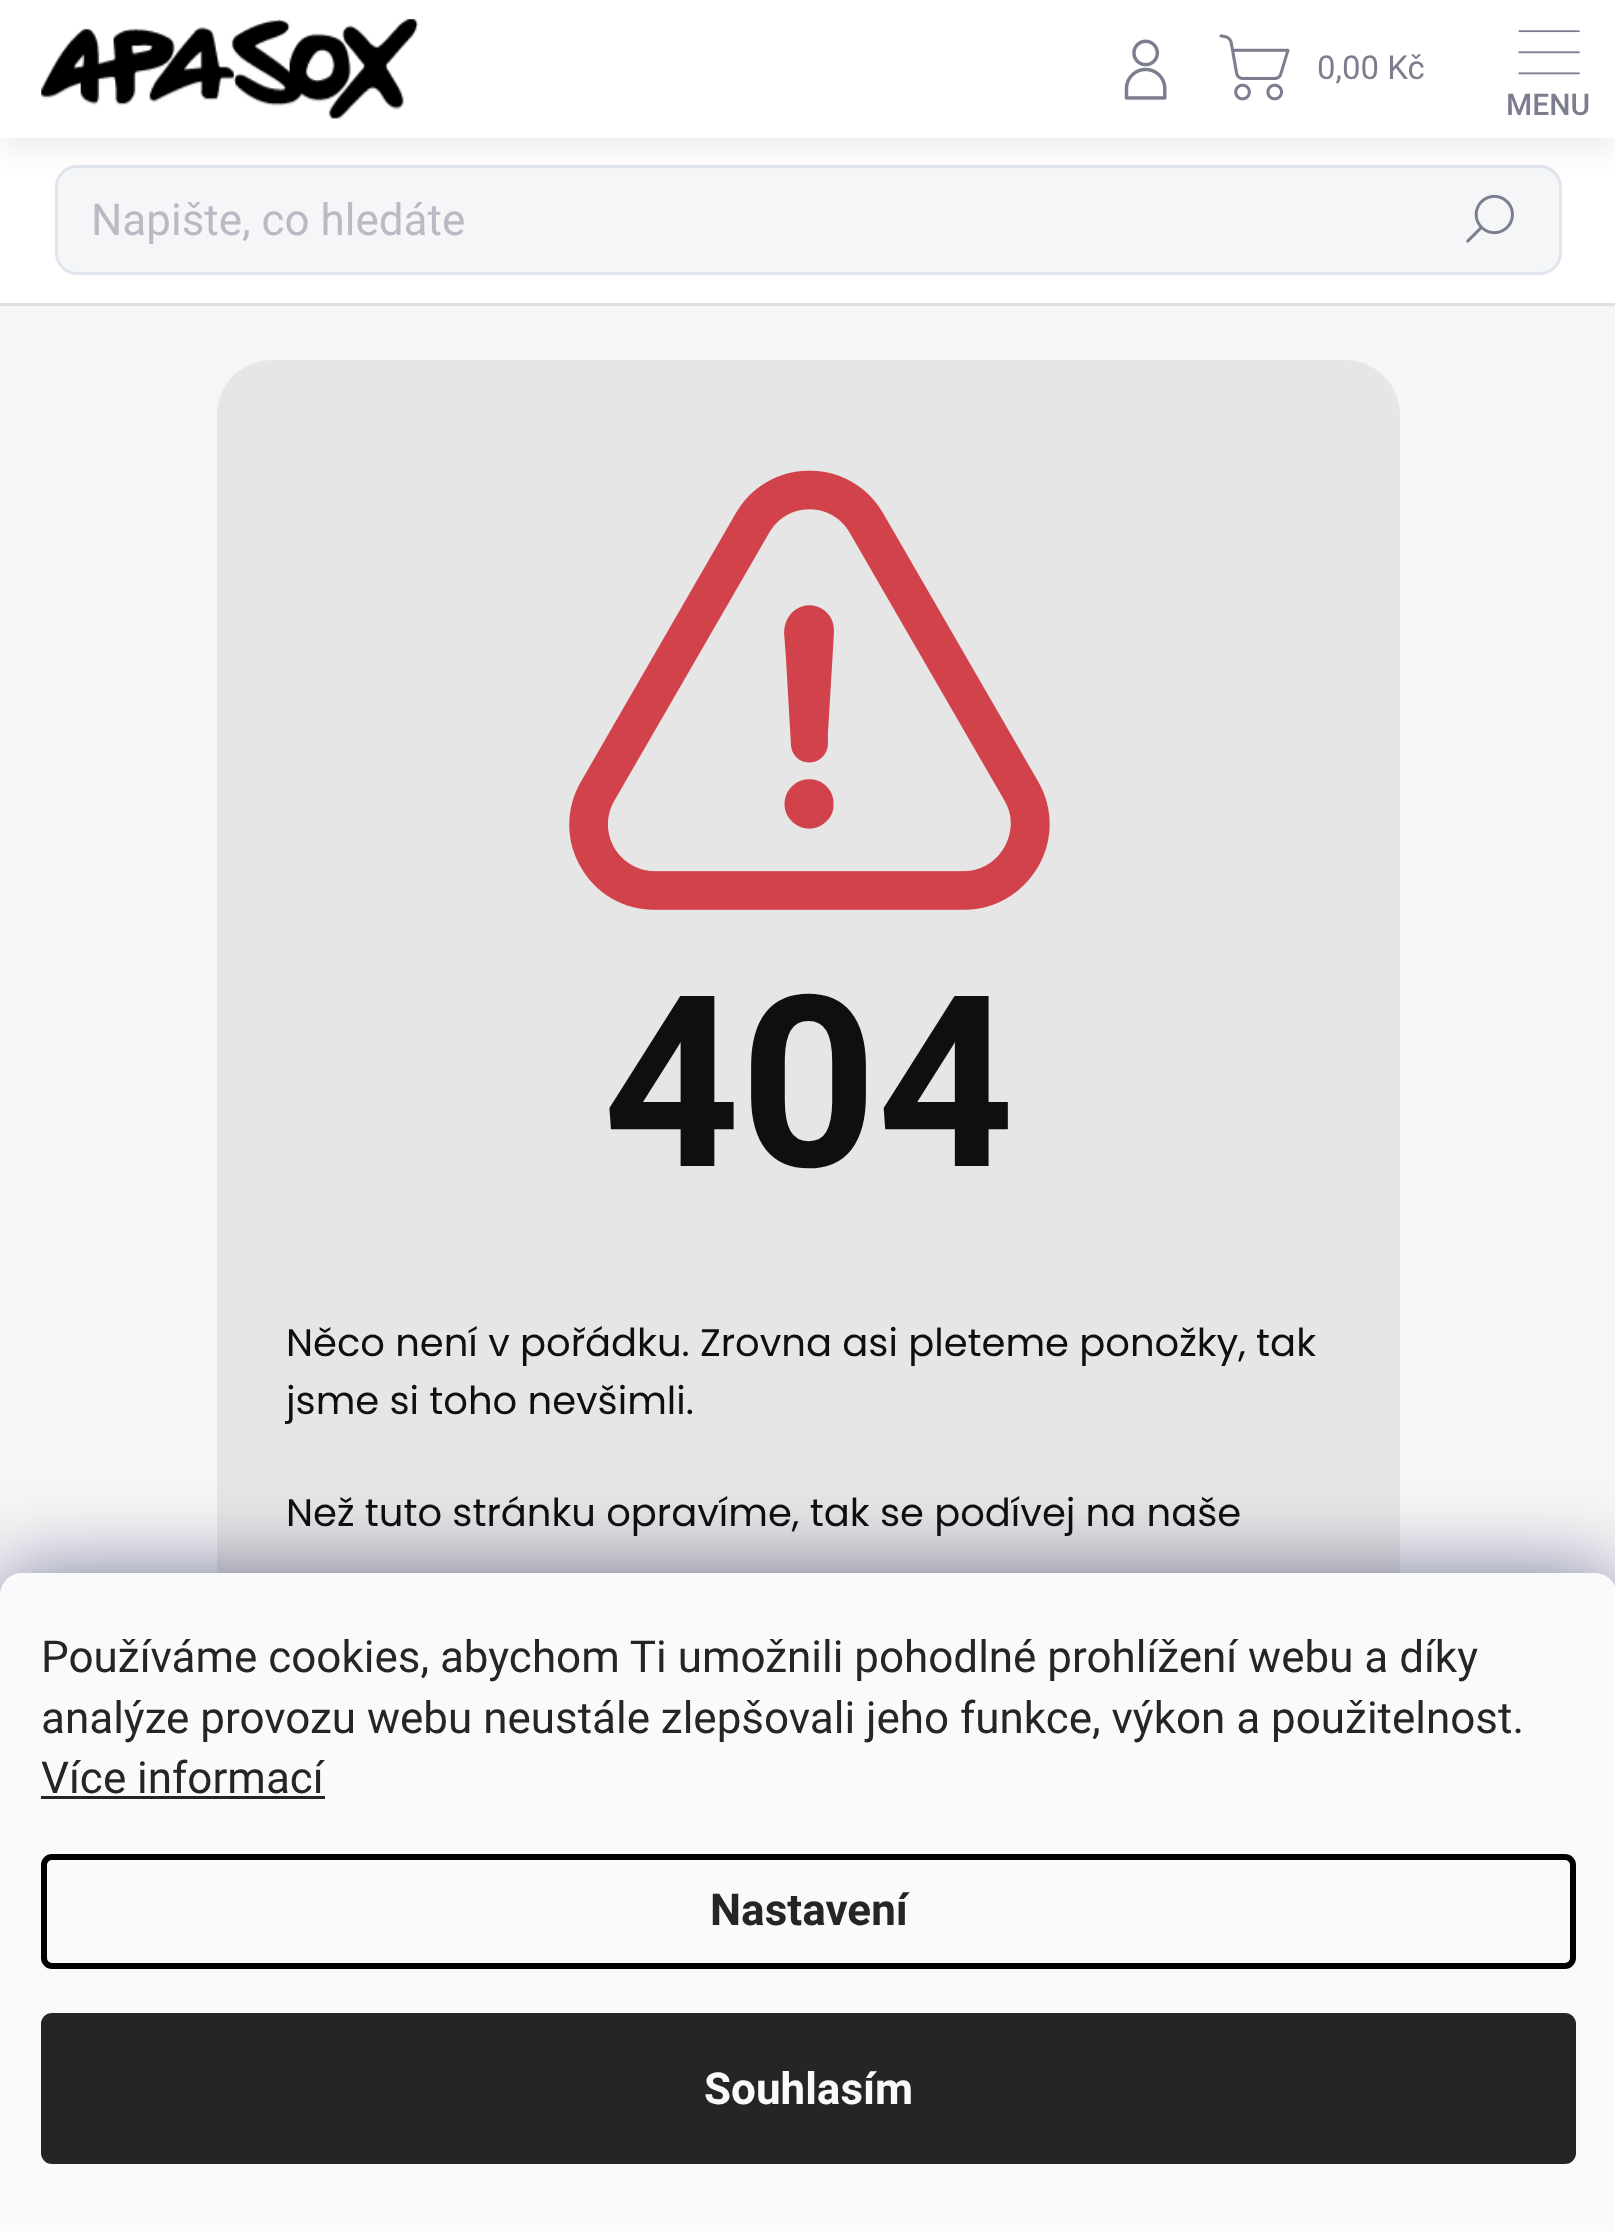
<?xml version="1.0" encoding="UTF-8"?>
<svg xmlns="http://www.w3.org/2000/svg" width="1615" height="2231">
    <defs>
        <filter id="blur1" x="-50%" y="-200%" width="200%" height="500%"><feGaussianBlur stdDeviation="14"/></filter>
        <filter id="blur2" x="-50%" y="-200%" width="200%" height="500%"><feGaussianBlur stdDeviation="41"/></filter>
    </defs>
    <rect width="100%" height="100%" fill="#F5F6F8"/>
    <rect x="0" y="138" width="1615" height="165" fill="#FFFFFF"/>
    <rect x="56.5" y="166.5" width="1504" height="107" rx="20.5" fill="#F5F6F8" stroke="#E0E5EE" stroke-width="3"/>
    <rect x="0" y="14" width="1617" height="137" fill="#000000" fill-opacity="0.07" filter="url(#blur1)"/>
    <rect x="0" y="0" width="1615" height="138" fill="#FFFFFF"/>
    <image x="41" y="19" width="378" height="100" href="img_01.png"/>
    <image x="1124" y="39" width="43" height="61" href="img_02.png"/>
    <image x="1219" y="34" width="71" height="67" href="img_03.png"/>
    <text x="1317" y="79" font-family="Roboto" font-size="33" fill="#7C7E8F">0,00 Kč</text>
    <image x="1518" y="30" width="62" height="45" href="img_04.png"/>
    <text x="1506" y="115" font-family="Roboto" font-size="30" font-weight="500" fill="#7C7E8F">MENU</text>
    <text x="91" y="235" font-family="Roboto" font-size="44" fill="#B9BAC4">Napište, co hledáte</text>
    <image x="1466" y="194" width="48" height="49" href="img_05.png"/>
    <rect x="0" y="303" width="1615" height="3" fill="#DFDFE2"/>
    <rect x="217" y="360" width="1183" height="1406" rx="55" fill="#E6E6E6"/>
    <image x="569" y="470" width="481" height="440" href="img_06.png"/>
    <text x="603" y="1166" font-family="Roboto" font-size="239" font-weight="700" fill="#0F0F0F">404</text>
    <text font-family="Poppins" font-size="38.5" fill="#0F0F0F">
        <tspan x="286" y="1356">Něco není v pořádku. Zrovna asi pleteme ponožky, tak</tspan>
        <tspan x="286" y="1414">jsme si toho nevšimli.</tspan>
    </text>
    <text x="286" y="1526" font-family="Poppins" font-size="38.5" fill="#0F0F0F">Než tuto stránku opravíme, tak se podívej na naše</text>
    <rect x="0" y="1573" width="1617" height="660" rx="22" fill="#1B1939" fill-opacity="0.5" filter="url(#blur2)"/>
    <path d="M 22 1573 H 1595 C 1607 1573 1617 1583 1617 1595 V 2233 H 0 V 1595 C 0 1583 10 1573 22 1573 Z" fill="#F8FAFB"/>
    <text font-family="Roboto" font-size="44" fill="#252525">
        <tspan x="41" y="1672">Používáme cookies, abychom Ti umožnili pohodlné prohlížení webu a díky</tspan>
        <tspan x="41" y="1733">analýze provozu webu neustále zlepšovali jeho funkce, výkon a použitelnost.</tspan>
        <tspan x="41" y="1793">Více informací</tspan>
    </text>
    <rect x="41" y="1796" width="284" height="3" fill="#252525"/>
    <rect x="44" y="1857" width="1529" height="109" rx="8" fill="none" stroke="#000000" stroke-width="6"/>
    <text x="710" y="1925" font-family="Roboto" font-size="44" font-weight="700" fill="#252525">Nastavení</text>
    <rect x="41" y="2013" width="1535" height="151" rx="11" fill="#252525"/>
    <text x="704" y="2104" font-family="Roboto" font-size="44" font-weight="700" fill="#F8FAFB">Souhlasím</text>
</svg>
